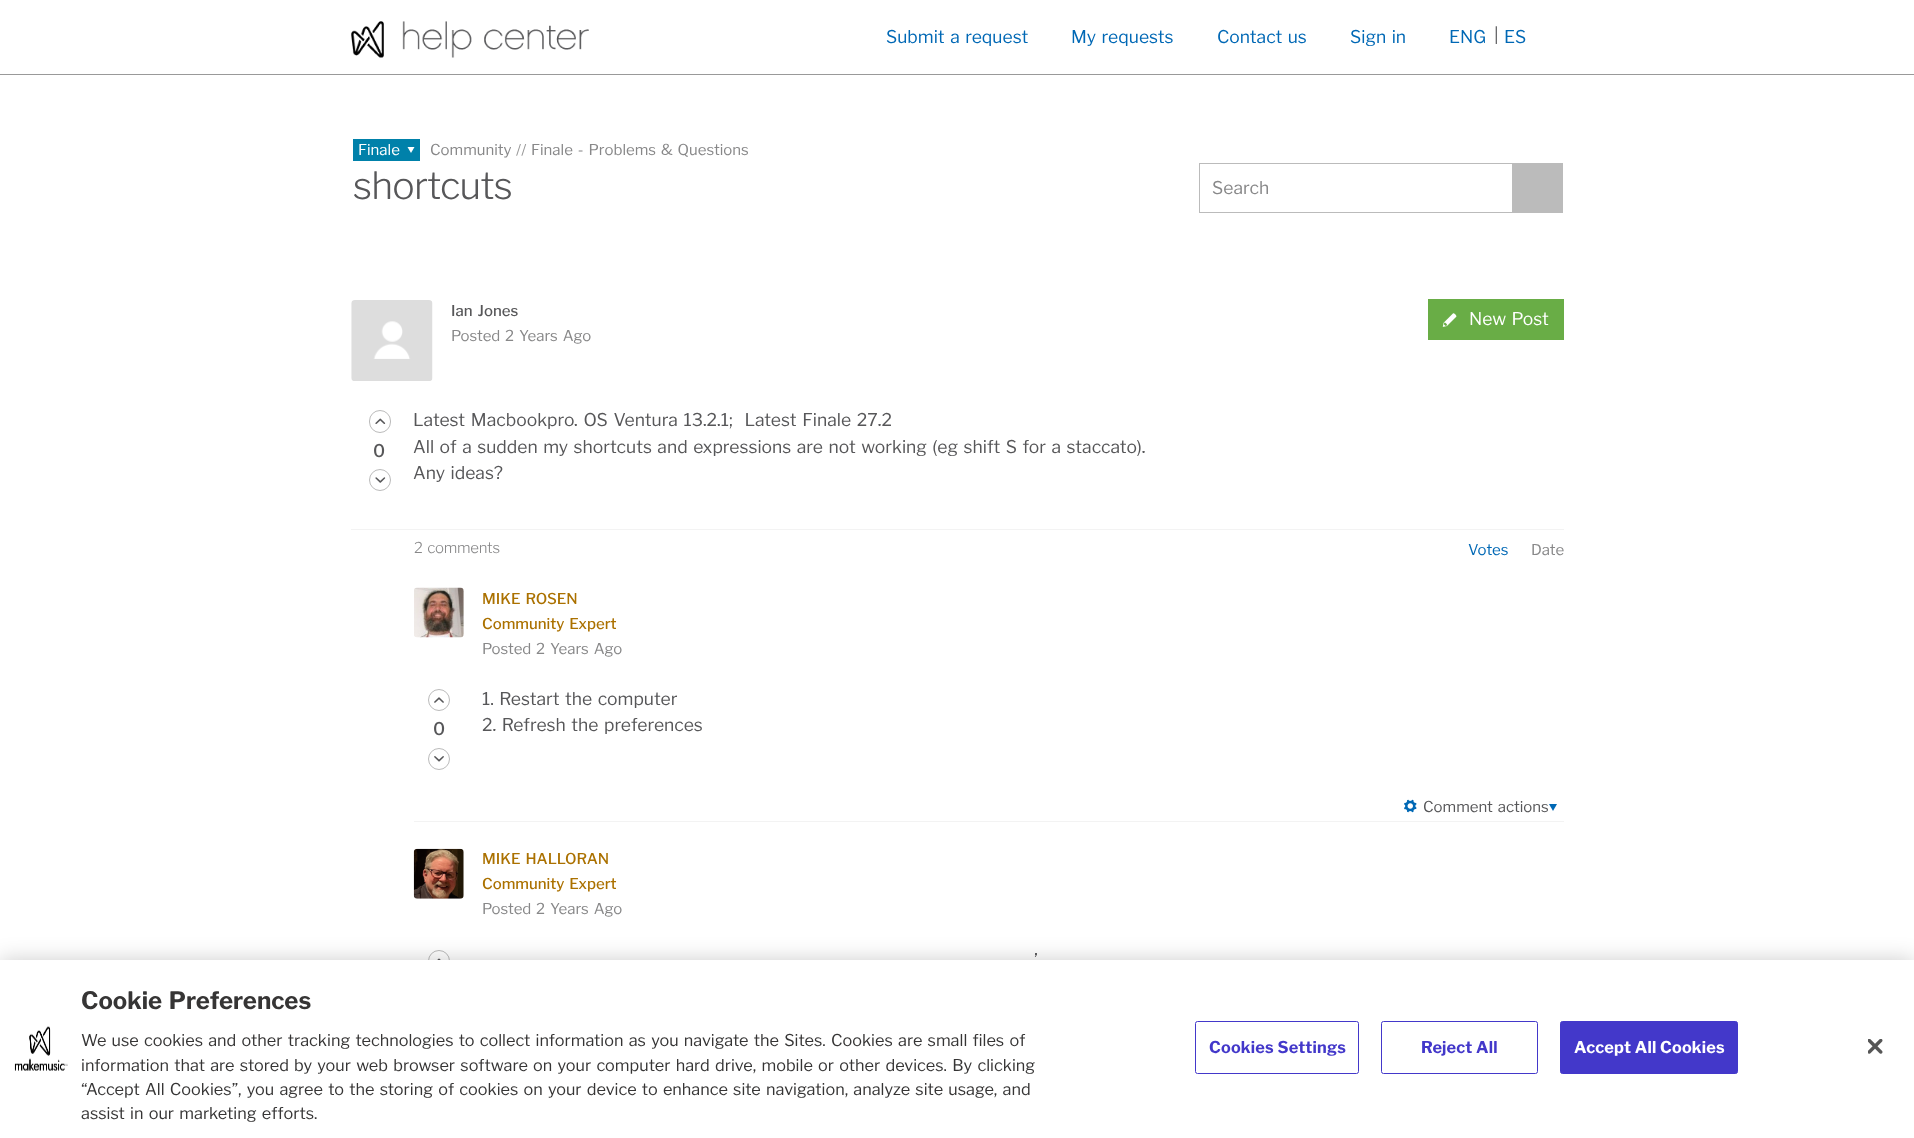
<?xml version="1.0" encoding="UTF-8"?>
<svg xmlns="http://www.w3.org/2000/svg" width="1914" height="1138">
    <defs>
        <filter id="blur1" x="-50%" y="-200%" width="200%" height="500%"><feGaussianBlur stdDeviation="11"/></filter>
    </defs>
    <rect width="100%" height="100%" fill="#FFFFFF"/>
    <rect x="0" y="74" width="1914" height="1" fill="#999999"/>
    <image x="351" y="21" width="238" height="37" href="img_01.png"/>
    <text x="886" y="43" word-spacing="1.75" font-family="Libre Franklin" font-size="17.5" fill="#0068B5">Submit a request</text>
    <text x="1071" y="43" word-spacing="1.75" font-family="Libre Franklin" font-size="17.5" fill="#0068B5">My requests</text>
    <text x="1217" y="43" word-spacing="1.75" font-family="Libre Franklin" font-size="17.5" fill="#0068B5">Contact us</text>
    <text x="1350" y="43" word-spacing="1.75" font-family="Libre Franklin" font-size="17.5" fill="#0068B5">Sign in</text>
    <text x="1449" y="43" font-family="Libre Franklin" font-size="17.5" fill="#0068B5">ENG</text>
    <text x="1494" y="41" font-family="Libre Franklin" font-size="17.5" fill="#575759">|</text>
    <text x="1504" y="43" font-family="Libre Franklin" font-size="17.5" fill="#0068B5">ES</text>
    <rect x="353" y="139" width="67" height="22" fill="#0081AA"/>
    <text x="358" y="155" font-family="Libre Franklin" font-size="15" fill="#FFFFFF">Finale</text>
    <path d="M 414.5 147 L 411 153 L 407.5 147 Z" fill="#FFFFFF"/>
    <text x="430" y="155" font-family="Libre Franklin" font-size="15" fill="#888889">Community</text>
    <text x="516" y="155" font-family="Libre Franklin" font-size="15" fill="#999999">//</text>
    <text x="531" y="155" word-spacing="1.75" font-family="Libre Franklin" font-size="15" fill="#888889">Finale - Problems &amp; Questions</text>
    <text x="353" y="199" font-family="Libre Franklin" font-size="37.5" font-weight="300" letter-spacing="-0.75" fill="#575759">shortcuts</text>
    <rect x="1199.5" y="163.5" width="313" height="49" fill="none" stroke="#BBBBBB"/>
    <text x="1212" y="194" font-family="Libre Franklin" font-size="17.5" fill="#888889">Search</text>
    <rect x="1513" y="163" width="50" height="50" fill="#BBBBBB"/>
    <image x="351" y="300" width="82" height="81" href="img_02.png"/>
    <text x="451" y="316" word-spacing="1.75" font-family="Libre Franklin" font-size="15" font-weight="500" fill="#575759">Ian Jones</text>
    <text x="451" y="341" font-family="Libre Franklin" font-size="15" fill="#888889">Posted</text>
    <text x="505" y="341" word-spacing="1.75" font-family="Libre Franklin" font-size="15" fill="#888889">2 Years Ago</text>
    <rect x="1428" y="299" width="136" height="41" fill="#69AD46"/>
    <image x="1442" y="313" width="15" height="14" href="img_03.png"/>
    <text x="1469" y="325" word-spacing="1.75" font-family="Libre Franklin" font-size="17.5" fill="#FFFFFF">New Post</text>
    <rect x="351" y="529" width="1213" height="1" fill="#F3F3F3"/>
    <rect x="369.5" y="410.5" width="21" height="22" rx="10.5" fill="none" stroke="#BBBBBB"/>
    <image x="375" y="418" width="11" height="6" href="img_04.png"/>
    <text x="373" y="457" font-family="Libre Franklin" font-size="17.5" font-weight="500" fill="#575759">0</text>
    <circle cx="380" cy="480" r="10.5" fill="none" stroke="#BBBBBB"/>
    <image x="375" y="477" width="11" height="6" href="img_05.png"/>
    <text font-family="Libre Franklin" font-size="17.5" fill="#575759" xml:space="preserve"><tspan x="413" y="426" word-spacing="2">Latest Macbookpro. OS Ventura 13.2.1;  Latest Finale 27.2</tspan><tspan x="413" y="453" word-spacing="1.75">All of a sudden my shortcuts and expressions are not working (eg shift S for a staccato).</tspan><tspan x="413" y="479" word-spacing="1.75">Any ideas?</tspan></text>
    <text x="414" y="553" word-spacing="1.75" font-family="Libre Franklin" font-size="15" font-weight="300" letter-spacing="-0.25" fill="#888889">2 comments</text>
    <text x="1468" y="555" font-family="Libre Franklin" font-size="15" fill="#0068B5">Votes</text>
    <text x="1531" y="555" font-family="Libre Franklin" font-size="15" fill="#888889">Date</text>
    <image x="414" y="587" width="50" height="51" href="img_06.png"/>
    <text font-family="Libre Franklin" font-size="15" font-weight="500" fill="#AB7100">
        <tspan x="482" y="604" word-spacing="1.75">MIKE ROSEN</tspan>
        <tspan x="482" y="629" word-spacing="1.75">Community Expert</tspan>
    </text>
    <text x="482" y="654" font-family="Libre Franklin" font-size="15" fill="#888889">Posted</text>
    <text x="536" y="654" word-spacing="1.75" font-family="Libre Franklin" font-size="15" fill="#888889">2 Years Ago</text>
    <rect x="414" y="821" width="1150" height="1" fill="#F3F3F3"/>
    <circle cx="439" cy="700" r="10.5" fill="none" stroke="#BBBBBB"/>
    <image x="434" y="697" width="10" height="6" href="img_07.png"/>
    <text x="433" y="735" font-family="Libre Franklin" font-size="17.5" font-weight="500" fill="#575759">0</text>
    <circle cx="439" cy="759" r="10.5" fill="none" stroke="#BBBBBB"/>
    <image x="434" y="756" width="10" height="6" href="img_08.png"/>
    <text font-family="Libre Franklin" font-size="17.5" fill="#575759">
        <tspan x="482" y="705" word-spacing="1.75">1. Restart the computer</tspan>
        <tspan x="482" y="731" word-spacing="1.75">2. Refresh the preferences</tspan>
    </text>
    <image x="1404" y="799" width="13" height="14" href="img_09.png"/>
    <text x="1423" y="812" word-spacing="1.75" font-family="Libre Franklin" font-size="15" fill="#575759">Comment actions</text>
    <path d="M 1557 804 L 1553 811 L 1549 804 Z" fill="#0068B5"/>
    <image x="413" y="848" width="51" height="51" href="img_10.png"/>
    <text font-family="Libre Franklin" font-size="15" font-weight="500" fill="#AB7100">
        <tspan x="482" y="864" word-spacing="1.75">MIKE HALLORAN</tspan>
        <tspan x="482" y="889" word-spacing="1.75">Community Expert</tspan>
    </text>
    <text x="482" y="914" font-family="Libre Franklin" font-size="15" fill="#888889">Posted</text>
    <text x="536" y="914" word-spacing="1.75" font-family="Libre Franklin" font-size="15" fill="#888889">2 Years Ago</text>
    <rect x="428.5" y="950.5" width="21" height="22" rx="10.5" fill="none" stroke="#BBBBBB"/>
    <image x="437" y="958" width="4" height="2" href="img_11.png"/>
    <text x="1034" y="966" word-spacing="2" font-family="Libre Franklin" font-size="17.5" fill="#575759">’</text>
    <rect x="0" y="960" width="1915" height="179" fill="#000000" fill-opacity="0.2" filter="url(#blur1)"/>
    <rect x="0" y="960" width="1914" height="178" fill="#FFFFFF"/>
    <image x="14" y="1026" width="54" height="45" href="img_12.png"/>
    <text x="81" y="1009" word-spacing="1.75" font-family="Libre Franklin" font-size="24" font-weight="700" fill="#363535">Cookie Preferences</text>
    <text x="81" y="1046" word-spacing="1.75" font-family="Libre Franklin" font-size="16.25" fill="#363535">We use cookies and other tracking technologies to collect information as you navigate the Sites.</text>
    <text x="831" y="1046" word-spacing="1.75" font-family="Libre Franklin" font-size="16.25" fill="#363535">Cookies are small files of</text>
    <text font-family="Libre Franklin" font-size="16.25" fill="#363535">
        <tspan x="81" y="1071" word-spacing="1.75">information that are stored by your web browser software on your computer hard drive, mobile or other devices. By clicking</tspan>
        <tspan x="81" y="1095" word-spacing="1.75">“Accept All Cookies”, you agree to the storing of cookies on your device to enhance site navigation, analyze site usage, and</tspan>
        <tspan x="81" y="1119" word-spacing="1.75">assist in our marketing efforts.</tspan>
    </text>
    <rect x="1195.5" y="1021.5" width="163" height="52" rx="2" fill="none" stroke="#4338CA"/>
    <text x="1209" y="1053" font-family="Libre Franklin" font-size="16.25" font-weight="700" letter-spacing="0.2" fill="#4338CA">Cookies Settings</text>
    <rect x="1381.5" y="1021.5" width="156" height="52" rx="2" fill="none" stroke="#4338CA"/>
    <text x="1421" y="1053" font-family="Libre Franklin" font-size="16.25" font-weight="700" letter-spacing="0.2" fill="#4338CA">Reject All</text>
    <rect x="1560.5" y="1021.5" width="177" height="52" rx="2" fill="#4338CA" stroke="#4338CA"/>
    <text x="1574" y="1053" font-family="Libre Franklin" font-size="16.25" font-weight="700" letter-spacing="0.2" fill="#FFFFFF">Accept All Cookies</text>
    <image x="1868" y="1039" width="15" height="15" href="img_13.png"/>
</svg>
